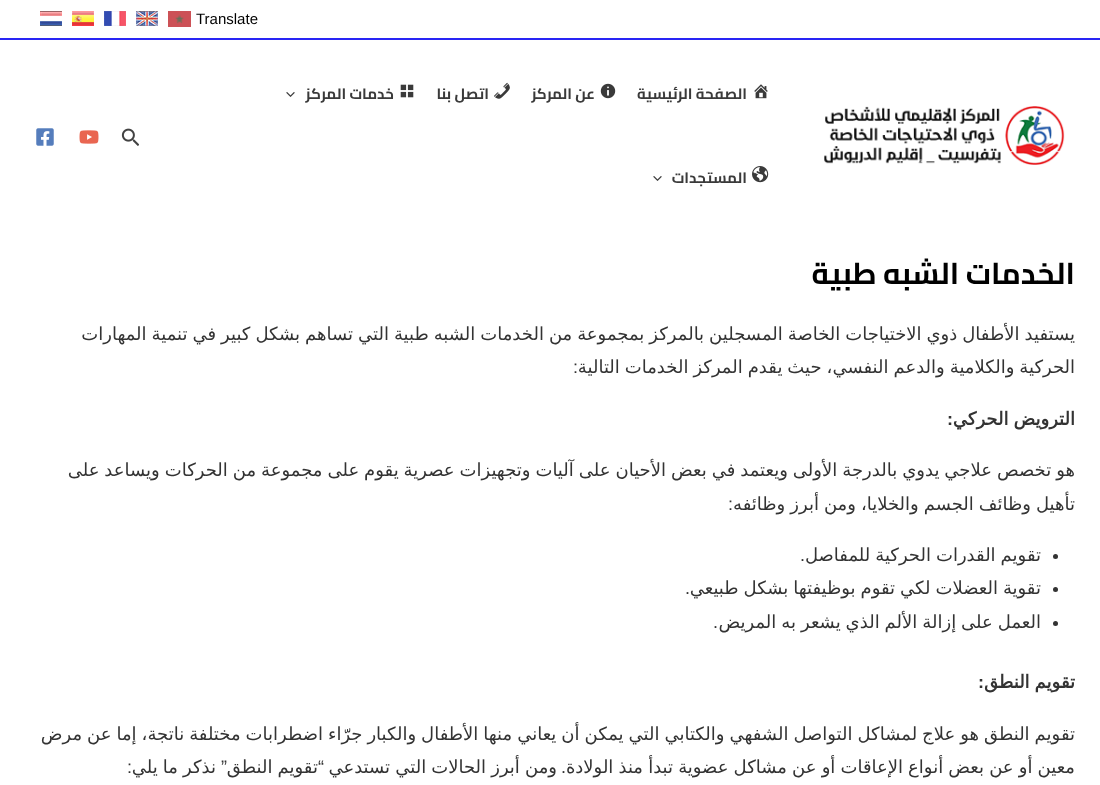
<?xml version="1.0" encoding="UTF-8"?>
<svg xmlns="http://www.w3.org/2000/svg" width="1100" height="785">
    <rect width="100%" height="100%" fill="#FFFFFF"/>
    <rect x="0" y="38" width="1100" height="2" fill="#2925F4"/>
    <text x="196" y="24" font-family="Liberation Sans" font-size="15" fill="#000000">Translate</text>
    <image x="168" y="11" width="23" height="16" href="img_01.png"/>
    <image x="136" y="11" width="22" height="15" href="img_02.png"/>
    <image x="104" y="11" width="22" height="15" href="img_03.png"/>
    <image x="72" y="11" width="22" height="15" href="img_04.png"/>
    <image x="40" y="11" width="22" height="15" href="img_05.png"/>
    <image x="824" y="106" width="241" height="59" href="img_06.png"/>
    <image x="754" y="84" width="14" height="15" href="img_07.png"/>
    <text x="747" y="99" font-family="Cairo Play" font-size="15" font-weight="700" direction="rtl" fill="#3A3A3A">الصفحة الرئيسية</text>
    <image x="600" y="83" width="16" height="16" href="img_08.png"/>
    <text x="595" y="99" font-family="Cairo Play" font-size="15" font-weight="700" direction="rtl" fill="#3A3A3A">عن المركز</text>
    <image x="494" y="82" width="16" height="17" href="img_09.png"/>
    <text x="489" y="99" font-family="Cairo Play" font-size="15" font-weight="700" direction="rtl" fill="#3A3A3A">اتصل بنا</text>
    <image x="400" y="84" width="14" height="14" href="img_10.png"/>
    <text x="394" y="99" font-family="Cairo Play" font-size="15" font-weight="700" direction="rtl" fill="#3A3A3A">خدمات المركز</text>
    <image x="286" y="92" width="9" height="5" href="img_11.png"/>
    <image x="752" y="166" width="17" height="17" href="img_12.png"/>
    <text x="747" y="183" font-family="Cairo Play" font-size="15" font-weight="700" direction="rtl" fill="#3A3A3A">المستجدات</text>
    <image x="653" y="176" width="9" height="5" href="img_11.png"/>
    <image x="121" y="128" width="18" height="18" href="img_13.png"/>
    <image x="79" y="130" width="20" height="14" href="img_14.png"/>
    <image x="36" y="128" width="18" height="18" href="img_15.png"/>
    <text x="1075" y="284" font-family="Cairo" font-size="30" font-weight="700" direction="rtl" fill="#000000">الخدمات الشبه طبية</text>
    <text font-family="DejaVu Sans" font-size="18" direction="rtl" fill="#333333">
        <tspan x="1075" y="340" word-spacing="-0.75">يستفيد الأطفال ذوي الاختياجات الخاصة المسجلين بالمركز بمجموعة من الخدمات الشبه طبية التي تساهم بشكل كبير في تنمية المهارات</tspan>
        <tspan x="1075" y="373" word-spacing="-0.75">الحركية والكلامية والدعم النفسي، حيث يقدم المركز الخدمات التالية</tspan>
    </text>
    <text x="578" y="373" font-family="Liberation Sans" font-size="18" direction="rtl" fill="#333333">:</text>
    <text x="1075" y="425" word-spacing="-0.75" font-family="DejaVu Sans" font-size="18" font-weight="700" direction="rtl" fill="#333333">الترويض الحركي</text>
    <text x="953" y="425" font-family="Liberation Sans" font-size="18" font-weight="700" direction="rtl" fill="#333333">:</text>
    <text font-family="DejaVu Sans" font-size="18" direction="rtl" fill="#333333">
        <tspan x="1075" y="476" word-spacing="-0.75">هو تخصص علاجي يدوي بالدرجة الأولى ويعتمد في بعض الأحيان على آليات وتجهيزات عصرية يقوم على مجموعة من الحركات ويساعد على</tspan>
        <tspan x="1075" y="510" word-spacing="-0.75">تأهيل وظائف الجسم والخلايا، ومن أبرز وظائفه</tspan>
    </text>
    <text x="733" y="510" font-family="Liberation Sans" font-size="18" direction="rtl" fill="#333333">:</text>
    <circle cx="1055.5" cy="556.5" r="2.5" fill="#333333"/>
    <text x="1041" y="561" word-spacing="-0.75" font-family="DejaVu Sans" font-size="18" direction="rtl" fill="#333333">تقويم القدرات الحركية للمفاصل</text>
    <text x="805" y="561" font-family="Liberation Sans" font-size="18" direction="rtl" fill="#333333">.</text>
    <circle cx="1055.5" cy="589.5" r="2.5" fill="#333333"/>
    <text x="1041" y="594" word-spacing="-0.75" font-family="DejaVu Sans" font-size="18" direction="rtl" fill="#333333">تقوية العضلات لكي تقوم بوظيفتها بشكل طبيعي</text>
    <text x="690" y="594" font-family="Liberation Sans" font-size="18" direction="rtl" fill="#333333">.</text>
    <circle cx="1055.5" cy="623.5" r="2.5" fill="#333333"/>
    <text x="1041" y="628" word-spacing="-0.75" font-family="DejaVu Sans" font-size="18" direction="rtl" fill="#333333">العمل على إزالة الألم الذي يشعر به المريض</text>
    <text x="718" y="628" font-family="Liberation Sans" font-size="18" direction="rtl" fill="#333333">.</text>
    <text x="1075" y="688" word-spacing="-0.75" font-family="DejaVu Sans" font-size="18" font-weight="700" direction="rtl" fill="#333333">تقويم النطق</text>
    <text x="984" y="688" font-family="Liberation Sans" font-size="18" font-weight="700" direction="rtl" fill="#333333">:</text>
    <text font-family="DejaVu Sans" font-size="18" direction="rtl" fill="#333333">
        <tspan x="1075" y="740" word-spacing="-0.75">تقويم النطق هو علاج لمشاكل التواصل الشفهي والكتابي التي يمكن أن يعاني منها الأطفال والكبار جرّاء اضطرابات مختلفة ناتجة، إما عن مرض</tspan>
        <tspan x="1075" y="773" word-spacing="-0.6">معين أو عن بعض أنواع الإعاقات أو عن مشاكل عضوية تبدأ منذ الولادة</tspan>
    </text>
    <text x="557" y="773" word-spacing="-0.6" font-family="DejaVu Sans" font-size="18" direction="rtl" fill="#333333">ومن أبرز الحالات التي تستدعي</text>
    <text x="324" y="773" font-family="Liberation Sans" font-size="18" direction="rtl" fill="#333333">“</text>
    <text x="318" y="773" word-spacing="-0.6" font-family="DejaVu Sans" font-size="18" direction="rtl" fill="#333333">تقويم النطق</text>
    <text x="227" y="773" font-family="Liberation Sans" font-size="18" direction="rtl" fill="#333333">”</text>
    <text x="216" y="773" word-spacing="-0.6" font-family="DejaVu Sans" font-size="18" direction="rtl" fill="#333333">نذكر ما يلي</text>
    <text x="566" y="773" font-family="Liberation Sans" font-size="18" direction="rtl" fill="#333333">.</text>
    <text x="132" y="773" font-family="Liberation Sans" font-size="18" direction="rtl" fill="#333333">:</text>
</svg>
